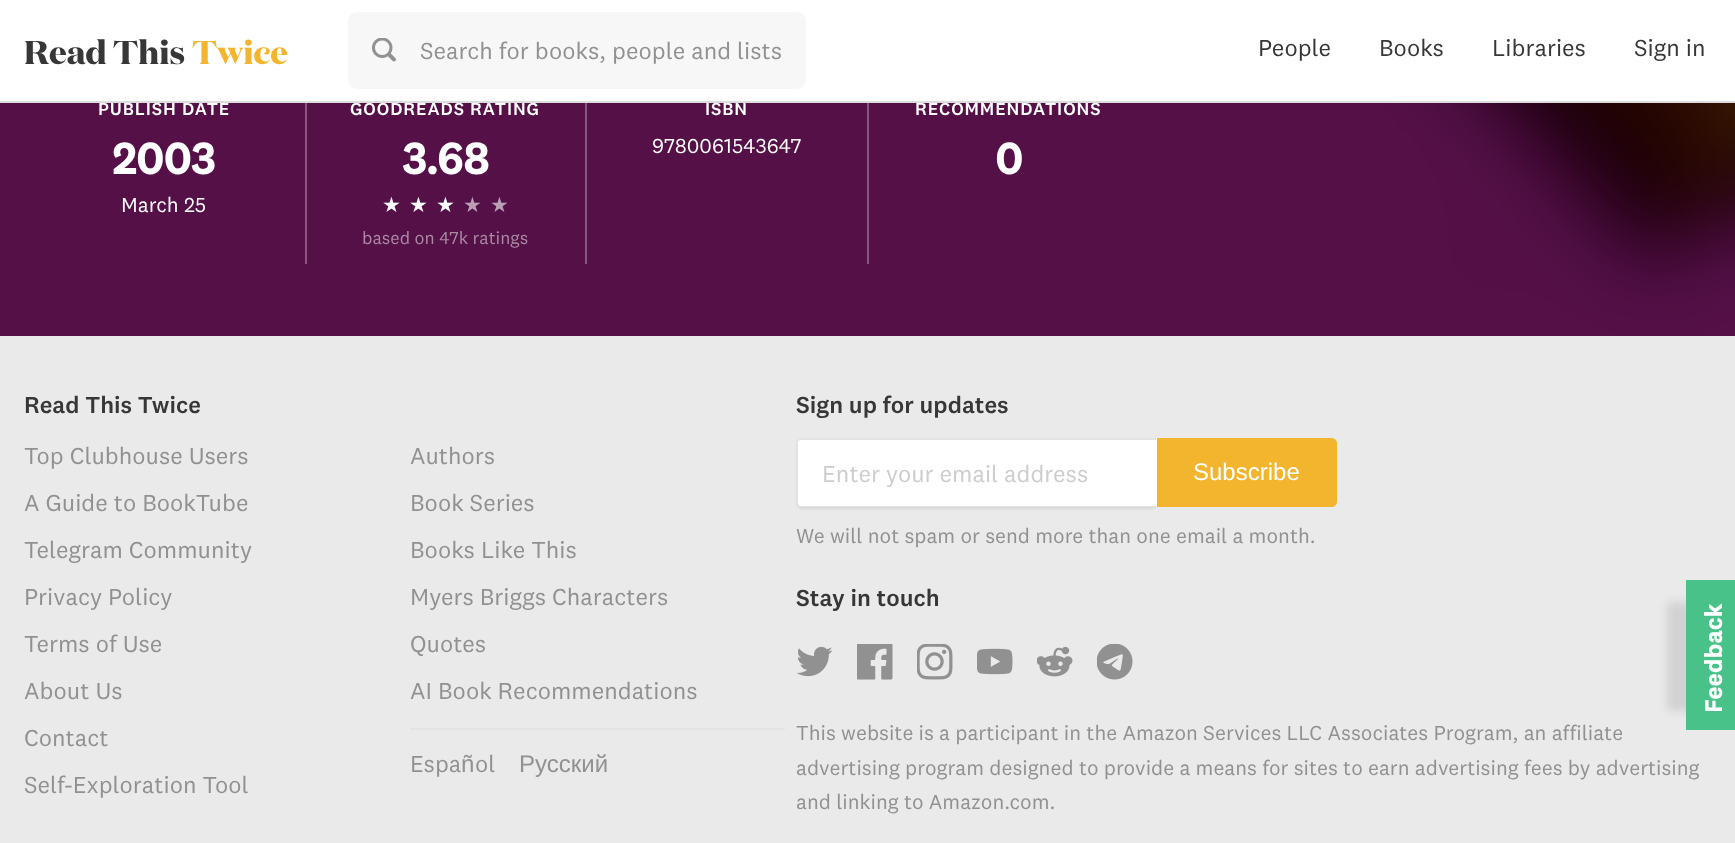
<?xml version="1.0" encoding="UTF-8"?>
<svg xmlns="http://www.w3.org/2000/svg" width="1735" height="843">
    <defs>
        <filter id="blur1" x="-50%" y="-200%" width="200%" height="500%"><feGaussianBlur stdDeviation="1"/></filter>
        <filter id="blur2" x="-50%" y="-200%" width="200%" height="500%"><feGaussianBlur stdDeviation="4"/></filter>
    </defs>
    <rect width="100%" height="100%" fill="#FFFFFF"/>
    <image x="0" y="103" width="1735" height="233" href="img_02.png"/>
    <text x="98" y="115" font-family="'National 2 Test'" font-size="18" font-weight="500" letter-spacing="0.9" fill="#FFFFFF">PUBLISH DATE</text>
    <text x="350" y="115" font-family="'National 2 Test'" font-size="18" font-weight="500" letter-spacing="0.9" fill="#FFFFFF">GOODREADS RATING</text>
    <text x="705" y="115" font-family="'National 2 Test'" font-size="18" font-weight="500" letter-spacing="0.9" fill="#FFFFFF">ISBN</text>
    <text x="915" y="115" font-family="'National 2 Test'" font-size="18" font-weight="500" letter-spacing="0.9" fill="#FFFFFF">RECOMMENDATIONS</text>
    <rect x="0" y="101" width="1735" height="2" fill="#DDDDDD"/>
    <text x="24" y="64" font-family="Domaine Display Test" font-size="33" font-weight="700" fill="#373737">Read This</text>
    <text x="192" y="64" font-family="Domaine Display Test" font-size="33" font-weight="700" fill="#F4B52E">Twice</text>
    <rect x="348" y="12" width="458" height="77" rx="9" fill="#F7F7F7"/>
    <image x="372" y="38" width="24" height="24" href="img_01.png"/>
    <text x="420" y="59" font-family="'National 2 Test'" font-size="24" fill="#919191">Search for books, people and lists</text>
    <text x="1258" y="56" font-family="'National 2 Test'" font-size="24" fill="#373737">People</text>
    <text x="1379" y="56" font-family="'National 2 Test'" font-size="24" fill="#373737">Books</text>
    <text x="1492" y="56" font-family="'National 2 Test'" font-size="24" fill="#373737">Libraries</text>
    <text x="1634" y="56" font-family="'National 2 Test'" font-size="24" fill="#373737">Sign in</text>
    <rect x="305" y="103" width="2" height="161" fill="#87587E"/>
    <text x="112" y="174" font-family="'National 2 Test'" font-size="45" font-weight="700" fill="#FFFFFF">2003</text>
    <text x="121" y="212" font-family="'National 2 Test'" font-size="21" fill="#FFFFFF">March 25</text>
    <rect x="585" y="103" width="2" height="161" fill="#87587E"/>
    <text x="402" y="174" font-family="'National 2 Test'" font-size="45" font-weight="700" fill="#FFFFFF">3.68</text>
    <text x="382" y="212" font-family="DejaVu Sans" font-size="21" fill="#FFFFFF">★</text>
    <text x="409" y="212" font-family="DejaVu Sans" font-size="21" fill="#FFFFFF">★</text>
    <text x="436" y="212" font-family="DejaVu Sans" font-size="21" fill="#FFFFFF">★</text>
    <text x="463" y="212" font-family="DejaVu Sans" font-size="21" fill="#BB9FB5">★</text>
    <text x="490" y="212" font-family="DejaVu Sans" font-size="21" fill="#BB9FB5">★</text>
    <text x="362" y="244" font-family="'National 2 Test'" font-size="18" fill="#AA88A3">based on 47k ratings</text>
    <rect x="867" y="103" width="2" height="161" fill="#87587E"/>
    <text x="652" y="153" font-family="'National 2 Test'" font-size="21" fill="#FFFFFF">9780061543647</text>
    <text x="995" y="174" font-family="'National 2 Test'" font-size="45" font-weight="700" fill="#FFFFFF">0</text>
    <rect x="0" y="336" width="1735" height="507" fill="#EAEAEA"/>
    <text x="24" y="413" font-family="'National 2 Test'" font-size="24" font-weight="500" fill="#373737">Read This Twice</text>
    <text font-family="'National 2 Test'" font-size="24" fill="#919191">
        <tspan x="24" y="464">Top Clubhouse Users</tspan>
        <tspan x="24" y="511">A Guide to BookTube</tspan>
        <tspan x="24" y="558">Telegram Community</tspan>
        <tspan x="24" y="605">Privacy Policy</tspan>
        <tspan x="24" y="652">Terms of Use</tspan>
        <tspan x="24" y="699">About Us</tspan>
        <tspan x="24" y="746">Contact</tspan>
        <tspan x="24" y="793">Self-Exploration Tool</tspan>
    </text>
    <text font-family="'National 2 Test'" font-size="24" fill="#919191">
        <tspan x="410" y="464">Authors</tspan>
        <tspan x="410" y="511">Book Series</tspan>
        <tspan x="410" y="558">Books Like This</tspan>
        <tspan x="410" y="605">Myers Briggs Characters</tspan>
        <tspan x="410" y="652">Quotes</tspan>
        <tspan x="410" y="699">AI Book Recommendations</tspan>
    </text>
    <rect x="410" y="728" width="375" height="2" fill="#E3E3E3"/>
    <text x="410" y="772" font-family="'National 2 Test'" font-size="24" fill="#919191">Espa</text>
    <text x="461" y="772" font-family="Liberation Sans" font-size="24" fill="#919191">ñ</text>
    <text x="475" y="772" font-family="'National 2 Test'" font-size="24" fill="#919191">ol</text>
    <text x="519" y="772" font-family="Liberation Sans" font-size="24" fill="#919191">Русский</text>
    <text x="796" y="413" font-family="'National 2 Test'" font-size="24" font-weight="500" fill="#373737">Sign up for updates</text>
    <rect x="797" y="440" width="360" height="69" rx="5" fill="#5C6675" fill-opacity="0.15" filter="url(#blur1)"/>
    <path d="M 802 438 H 1157 V 507 H 802 C 799 507 797 505 797 502 V 443 C 797 440 799 438 802 438 Z" fill="#FFFFFF"/>
    <path d="M 801 438 H 1156 V 507 H 801 C 799 507 796 505 796 502 V 442 C 796 440 799 438 801 438 Z M 801 440 H 1156 V 506 H 801 C 799 506 798 504 798 502 V 442 C 798 441 799 440 801 440 Z" fill="#E3E3E3" fill-rule="evenodd"/>
    <text x="822" y="482" font-family="'National 2 Test'" font-size="24" fill="#CDCDCD">Enter your email address</text>
    <path d="M 1158 439 H 1332 C 1334 439 1336 441 1336 443 V 502 C 1336 504 1334 506 1332 506 H 1158 Z" fill="#F4B52E" stroke="#F4B52E" stroke-width="2"/>
    <text x="1193" y="480" font-family="Liberation Sans" font-size="24" fill="#FFFFFF">Subscribe</text>
    <text x="796" y="543" font-family="'National 2 Test'" font-size="21" fill="#919191">We will not spam or send more than one email a month.</text>
    <text x="796" y="606" font-family="'National 2 Test'" font-size="24" font-weight="500" fill="#373737">Stay in touch</text>
    <image x="797" y="646" width="36" height="31" href="img_03.png"/>
    <image x="857" y="644" width="36" height="36" href="img_04.png"/>
    <image x="917" y="644" width="36" height="36" href="img_05.png"/>
    <image x="977" y="648" width="36" height="27" href="img_06.png"/>
    <image x="1037" y="646" width="36" height="31" href="img_07.png"/>
    <image x="1097" y="644" width="36" height="36" href="img_08.png"/>
    <text font-family="'National 2 Test'" font-size="21" fill="#919191">
        <tspan x="796" y="740">This website is a participant in the Amazon Services LLC Associates Program, an affiliate</tspan>
        <tspan x="796" y="775">advertising program designed to provide a means for sites to earn advertising fees by advertising</tspan>
        <tspan x="796" y="809">and linking to Amazon.com.</tspan>
    </text>
    <rect x="1667" y="602" width="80" height="109" fill="#000000" fill-opacity="0.1" filter="url(#blur2)"/>
    <rect x="1686" y="580" width="49" height="150" fill="#48C289"/>
    <text x="1722" y="713" transform="rotate(-90 1722 713)" font-family="'National 2 Test'" font-size="24" font-weight="700" letter-spacing="0.5" fill="#FFFFFF">Feedback</text>
</svg>
